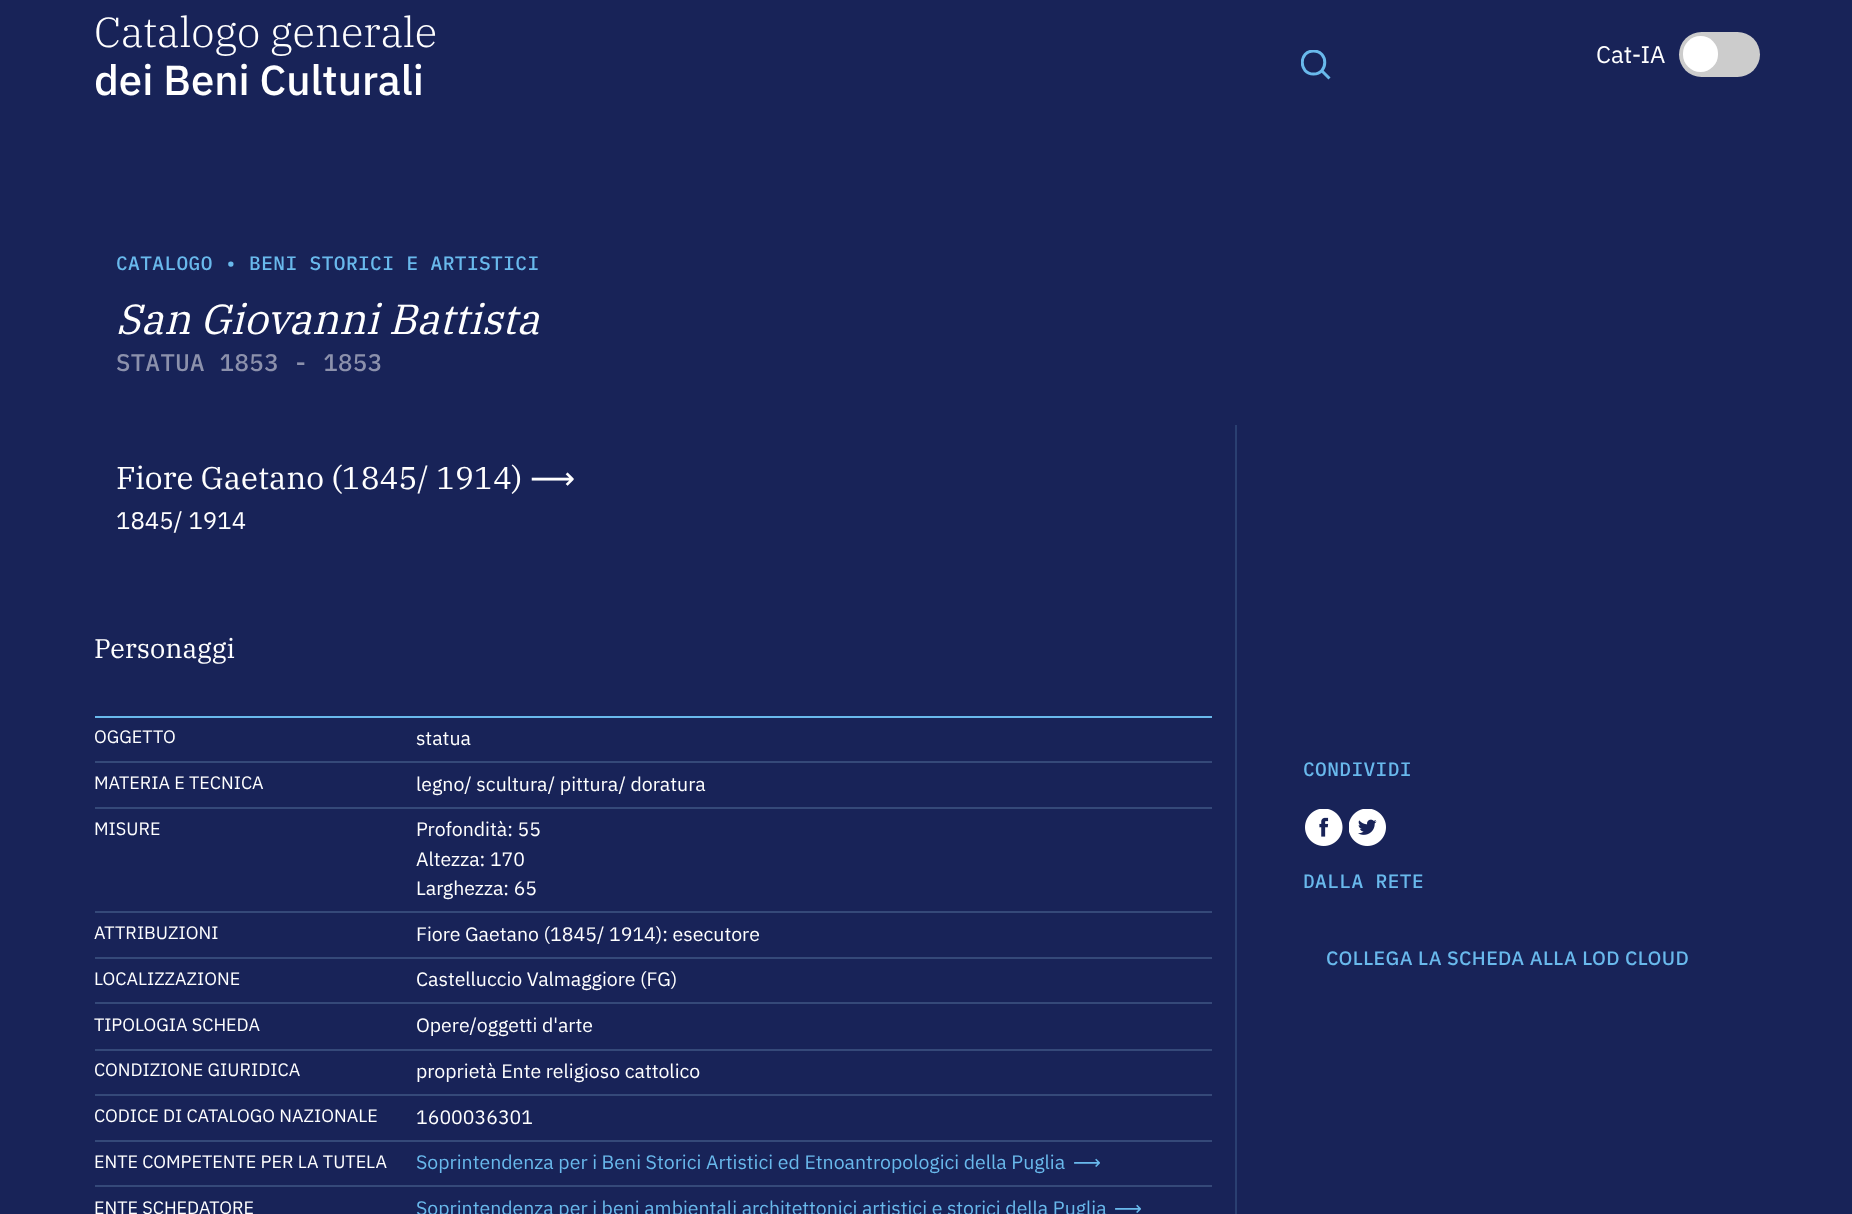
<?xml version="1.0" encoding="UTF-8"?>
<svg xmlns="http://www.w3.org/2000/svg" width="1852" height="1214">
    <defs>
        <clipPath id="clip1"><rect x="1301" y="50" width="30" height="30"/></clipPath>
    </defs>
    <rect width="100%" height="100%" fill="#182358"/>
    <text x="94" y="47" font-family="IBM Plex Serif" font-size="42" font-weight="300" fill="#FFFFFF">Catalogo generale</text>
    <text x="94" y="95" font-family="IBM Plex Sans" font-size="42" font-weight="500" fill="#FFFFFF">dei Beni Culturali</text>
    <g clip-path="url(#clip1)">
        <path d="M 1313.5 74 C 1328.5 74 1328.5 51 1313.5 51 C 1298.5 51 1298.5 74 1313.5 74 Z" fill="none" stroke="#69B9EC" stroke-width="3"/>
    </g>
    <path d="M 1322 71 L 1329.5 78.5" fill="none" stroke="#69B9EC" stroke-width="3"/>
    <text x="1596" y="63" font-family="IBM Plex Sans" font-size="24" fill="#FFFFFF">Cat-IA</text>
    <rect x="1679" y="32" width="81" height="45" rx="22.5" fill="#CCCCCC"/>
    <rect x="1683" y="36" width="35" height="36" rx="17.5" fill="#FFFFFF"/>
    <text x="116" y="270" font-family="IBM Plex Mono" font-size="19.5" font-weight="500" letter-spacing="0.4" fill="#69B9EC">CATALOGO • BENI STORICI E ARTISTICI</text>
    <text x="116" y="334" font-family="IBM Plex Serif" font-size="42" font-style="italic" fill="#FFFFFF">San Giovanni Battista</text>
    <text x="116" y="371" font-family="IBM Plex Mono" font-size="24" font-weight="500" letter-spacing="0.4" fill="#8C91AC">STATUA 1853 - 1853</text>
    <rect x="1235" y="425" width="2" height="789" fill="#2A3F71"/>
    <text x="116" y="489" font-family="IBM Plex Serif" font-size="31.5" fill="#FFFFFF">Fiore Gaetano (1845/ 1914)</text>
    <text x="530" y="489" font-family="DejaVu Sans" font-size="31.5" fill="#FFFFFF">⟶</text>
    <text x="116" y="529" font-family="IBM Plex Sans" font-size="24" fill="#FFFFFF">1845/ 1914</text>
    <text x="94" y="658" font-family="IBM Plex Serif" font-size="27" fill="#FFFFFF">Personaggi</text>
    <rect x="95" y="716" width="1117" height="2" fill="#69B9EC"/>
    <rect x="95" y="761" width="1117" height="2" fill="#354979"/>
    <text x="94" y="743" font-family="IBM Plex Sans" font-size="18" fill="#FFFFFF">OGGETTO</text>
    <text x="416" y="745" font-family="IBM Plex Sans" font-size="19.5" fill="#FFFFFF">statua</text>
    <rect x="95" y="807" width="1117" height="2" fill="#354979"/>
    <text x="94" y="789" font-family="IBM Plex Sans" font-size="18" fill="#FFFFFF">MATERIA E TECNICA</text>
    <text x="416" y="791" font-family="IBM Plex Sans" font-size="19.5" fill="#FFFFFF">legno/ scultura/ pittura/ doratura</text>
    <rect x="95" y="911" width="1117" height="2" fill="#354979"/>
    <text x="94" y="835" font-family="IBM Plex Sans" font-size="18" fill="#FFFFFF">MISURE</text>
    <text font-family="IBM Plex Sans" font-size="19.5" fill="#FFFFFF">
        <tspan x="416" y="836">Profondità: 55</tspan>
        <tspan x="416" y="866">Altezza: 170</tspan>
        <tspan x="416" y="895">Larghezza: 65</tspan>
    </text>
    <rect x="95" y="957" width="1117" height="2" fill="#354979"/>
    <text x="94" y="939" font-family="IBM Plex Sans" font-size="18" fill="#FFFFFF">ATTRIBUZIONI</text>
    <text x="416" y="941" font-family="IBM Plex Sans" font-size="19.5" fill="#FFFFFF">Fiore Gaetano (1845/ 1914): esecutore</text>
    <rect x="95" y="1002" width="1117" height="2" fill="#354979"/>
    <text x="94" y="985" font-family="IBM Plex Sans" font-size="18" fill="#FFFFFF">LOCALIZZAZIONE</text>
    <text x="416" y="986" font-family="IBM Plex Sans" font-size="19.5" fill="#FFFFFF">Castelluccio Valmaggiore (FG)</text>
    <rect x="95" y="1049" width="1117" height="2" fill="#354979"/>
    <text x="94" y="1031" font-family="IBM Plex Sans" font-size="18" fill="#FFFFFF">TIPOLOGIA SCHEDA</text>
    <text x="416" y="1032" font-family="IBM Plex Sans" font-size="19.5" fill="#FFFFFF">Opere/oggetti d'arte</text>
    <rect x="95" y="1094" width="1117" height="2" fill="#354979"/>
    <text x="94" y="1076" font-family="IBM Plex Sans" font-size="18" fill="#FFFFFF">CONDIZIONE GIURIDICA</text>
    <text x="416" y="1078" font-family="IBM Plex Sans" font-size="19.5" fill="#FFFFFF">proprietà Ente religioso cattolico</text>
    <rect x="95" y="1140" width="1117" height="2" fill="#354979"/>
    <text x="94" y="1122" font-family="IBM Plex Sans" font-size="18" fill="#FFFFFF">CODICE DI CATALOGO NAZIONALE</text>
    <text x="416" y="1124" font-family="IBM Plex Sans" font-size="19.5" fill="#FFFFFF">1600036301</text>
    <rect x="95" y="1185" width="1117" height="2" fill="#354979"/>
    <text x="94" y="1168" font-family="IBM Plex Sans" font-size="18" fill="#FFFFFF">ENTE COMPETENTE PER LA TUTELA</text>
    <text x="416" y="1169" font-family="IBM Plex Sans" font-size="19.5" fill="#69B9EC">Soprintendenza per i Beni Storici Artistici ed Etnoantropologici della Puglia</text>
    <text x="1073" y="1169" font-family="DejaVu Sans" font-size="19.5" fill="#69B9EC">⟶</text>
    <text x="94" y="1214" font-family="IBM Plex Sans" font-size="18" fill="#FFFFFF">ENTE SCHEDATORE</text>
    <text x="416" y="1215" font-family="IBM Plex Sans" font-size="19.5" fill="#69B9EC">Soprintendenza per i beni ambientali architettonici artistici e storici della Puglia</text>
    <text x="1114" y="1215" font-family="DejaVu Sans" font-size="19.5" fill="#69B9EC">⟶</text>
    <text x="1303" y="776" font-family="IBM Plex Mono" font-size="19.5" font-weight="500" letter-spacing="0.4" fill="#69B9EC">CONDIVIDI</text>
    <image x="1305" y="809" width="38" height="37" href="img_01.png"/>
    <image x="1349" y="809" width="37" height="37" href="img_02.png"/>
    <text x="1303" y="888" font-family="IBM Plex Mono" font-size="19.5" font-weight="500" letter-spacing="0.4" fill="#69B9EC">DALLA RETE</text>
    <text x="1326" y="965" font-family="IBM Plex Sans" font-size="19.5" font-weight="500" letter-spacing="0.4" fill="#69B9EC">COLLEGA LA SCHEDA ALLA LOD CLOUD</text>
</svg>
